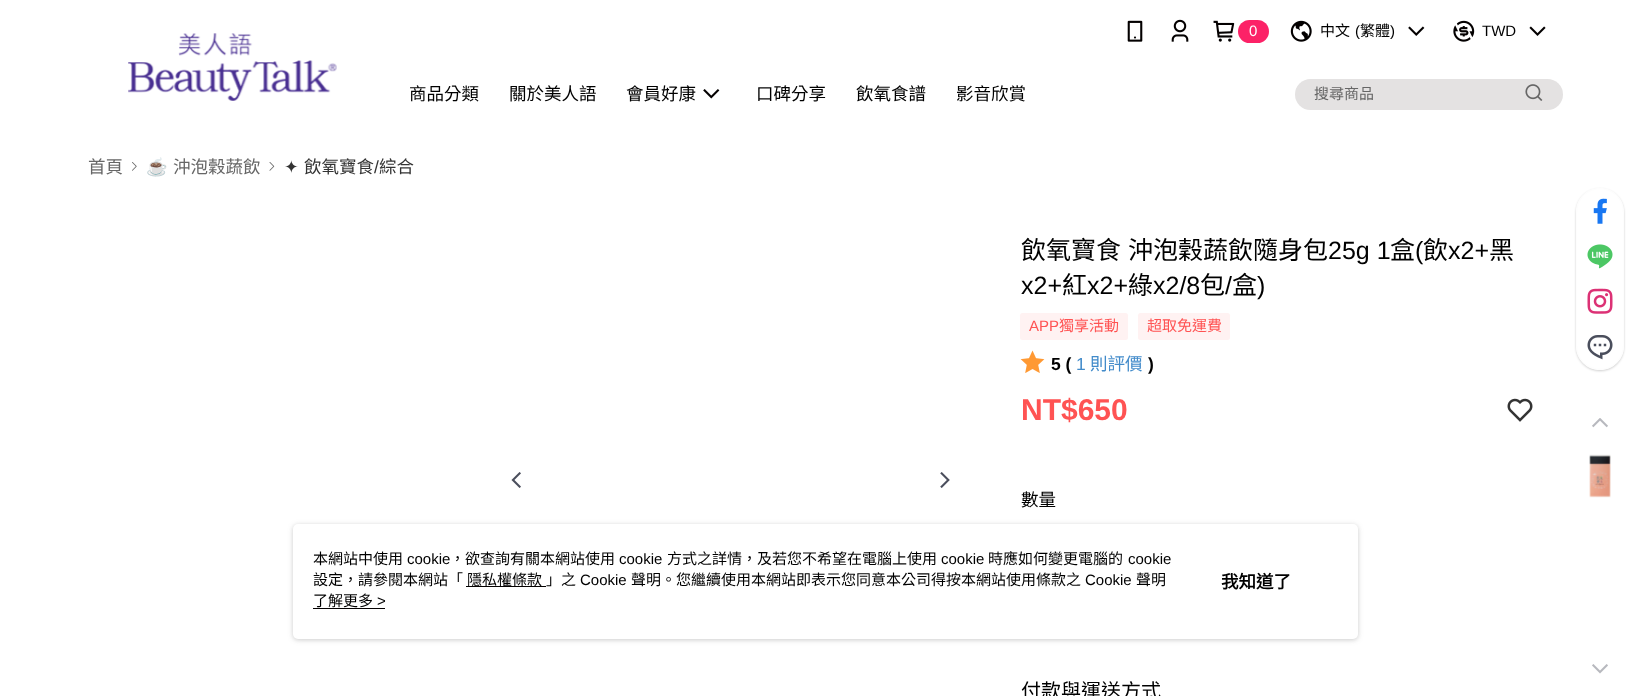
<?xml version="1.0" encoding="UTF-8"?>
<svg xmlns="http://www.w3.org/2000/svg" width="1650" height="696">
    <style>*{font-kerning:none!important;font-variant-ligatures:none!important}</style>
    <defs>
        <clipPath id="clip1"><path d="M 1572 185 H 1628 V 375 H 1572 Z M 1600 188 C 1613.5 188 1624 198.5 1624 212 V 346 C 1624 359.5 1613.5 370 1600 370 C 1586.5 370 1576 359.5 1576 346 V 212 C 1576 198.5 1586.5 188 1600 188 Z" clip-rule="evenodd"/></clipPath>
        <filter id="blur1" x="-50%" y="-200%" width="200%" height="500%"><feGaussianBlur stdDeviation="1"/></filter>
        <filter id="blur2" x="-50%" y="-200%" width="200%" height="500%"><feGaussianBlur stdDeviation="2.5"/></filter>
    </defs>
    <rect width="100%" height="100%" fill="#FFFFFF"/>
    <image x="128" y="33" width="209" height="68" href="img_01.png"/>
    <image x="1127" y="20" width="16" height="22" href="img_02.png"/>
    <image x="1171" y="19" width="18" height="23" href="img_03.png"/>
    <image x="1213" y="20" width="22" height="22" href="img_04.png"/>
    <rect x="1238" y="20" width="31" height="23" rx="11.5" fill="#FC2267"/>
    <text x="1249" y="36" font-family="Liberation Sans" font-size="15" fill="#FFFFFF">0</text>
    <image x="1290" y="20" width="22" height="22" href="img_05.png"/>
    <text x="1320" y="36" font-family="Noto Sans CJK TC" font-size="15" fill="#000000">中文</text>
    <text x="1355" y="36" font-family="Liberation Sans" font-size="15" fill="#000000">(</text>
    <text x="1360" y="36" font-family="Noto Sans CJK TC" font-size="15" fill="#000000">繁體</text>
    <text x="1390" y="36" font-family="Liberation Sans" font-size="15" fill="#000000">)</text>
    <image x="1408" y="26" width="17" height="10" href="img_06.png"/>
    <image x="1453" y="20" width="22" height="22" href="img_07.png"/>
    <text x="1482" y="36" font-family="Liberation Sans" font-size="15" fill="#000000">TWD</text>
    <image x="1529" y="26" width="17" height="10" href="img_08.png"/>
    <text x="409" y="100" font-family="Noto Sans CJK TC" font-size="17.5" fill="#000000">商品分類</text>
    <text x="509" y="100" font-family="Noto Sans CJK TC" font-size="17.5" fill="#000000">關於美人語</text>
    <text x="626" y="100" font-family="Noto Sans CJK TC" font-size="17.5" fill="#000000">會員好康</text>
    <image x="703" y="89" width="17" height="10" href="img_09.png"/>
    <text x="756" y="100" font-family="Noto Sans CJK TC" font-size="17.5" fill="#000000">口碑分享</text>
    <text x="856" y="100" font-family="Noto Sans CJK TC" font-size="17.5" fill="#000000">飲氧食譜</text>
    <text x="956" y="100" font-family="Noto Sans CJK TC" font-size="17.5" fill="#000000">影音欣賞</text>
    <rect x="1295" y="79" width="268" height="31" rx="15.5" fill="#E4E2E2"/>
    <text x="1314" y="99" font-family="Noto Sans CJK TC" font-size="15" fill="#666666">搜尋商品</text>
    <image x="1525" y="84" width="18" height="17" href="img_10.png"/>
    <text x="88" y="173" font-family="Noto Sans CJK TC" font-size="17.5" fill="#666666">首頁</text>
    <image x="132" y="162" width="5" height="9" href="img_11.png"/>
    <text x="146" y="173" font-family="Noto Color Emoji" font-size="17.5" fill="#666666">☕</text>
    <text x="173" y="173" font-family="Noto Sans CJK TC" font-size="17.5" fill="#666666">沖泡穀蔬飲</text>
    <image x="269" y="162" width="6" height="9" href="img_12.png"/>
    <text x="284" y="173" font-family="DejaVu Sans" font-size="17.5" fill="#333333">✦</text>
    <text x="304" y="173" font-family="Noto Sans CJK TC" font-size="17.5" fill="#333333">飲氧寶食</text>
    <text x="374" y="173" font-family="Liberation Sans" font-size="17.5" fill="#333333">/</text>
    <text x="379" y="173" font-family="Noto Sans CJK TC" font-size="17.5" fill="#333333">綜合</text>
    <image x="511" y="472" width="10" height="16" href="img_13.png"/>
    <image x="940" y="472" width="10" height="16" href="img_14.png"/>
    <text x="1021" y="259" font-family="Noto Sans CJK TC" font-size="25" fill="#000000">飲氧寶食</text>
    <text x="1128" y="259" font-family="Noto Sans CJK TC" font-size="25" fill="#000000">沖泡穀蔬飲隨身包</text>
    <text x="1328" y="259" font-family="Liberation Sans" font-size="25" fill="#000000">25g 1</text>
    <text x="1390" y="259" font-family="Noto Sans CJK TC" font-size="25" fill="#000000">盒</text>
    <text x="1415" y="259" font-family="Liberation Sans" font-size="25" fill="#000000">(</text>
    <text x="1423" y="259" font-family="Noto Sans CJK TC" font-size="25" fill="#000000">飲</text>
    <text x="1448" y="259" font-family="Liberation Sans" font-size="25" fill="#000000">x2+</text>
    <text x="1489" y="259" font-family="Noto Sans CJK TC" font-size="25" fill="#000000">黑</text>
    <text x="1021" y="294" font-family="Liberation Sans" font-size="25" fill="#000000">x2+</text>
    <text x="1062" y="294" font-family="Noto Sans CJK TC" font-size="25" fill="#000000">紅</text>
    <text x="1087" y="294" font-family="Liberation Sans" font-size="25" fill="#000000">x2+</text>
    <text x="1128" y="294" font-family="Noto Sans CJK TC" font-size="25" fill="#000000">綠</text>
    <text x="1153" y="294" font-family="Liberation Sans" font-size="25" fill="#000000">x2/8</text>
    <text x="1200" y="294" font-family="Noto Sans CJK TC" font-size="25" fill="#000000">包</text>
    <text x="1225" y="294" font-family="Liberation Sans" font-size="25" fill="#000000">/</text>
    <text x="1232" y="294" font-family="Noto Sans CJK TC" font-size="25" fill="#000000">盒</text>
    <text x="1257" y="294" font-family="Liberation Sans" font-size="25" fill="#000000">)</text>
    <rect x="1020" y="313" width="108" height="27" rx="2.5" fill="#FFF2F2"/>
    <text x="1029" y="331" font-family="Liberation Sans" font-size="15" fill="#FF5353">APP</text>
    <text x="1059" y="331" font-family="Noto Sans CJK TC" font-size="15" fill="#FF5353">獨享活動</text>
    <rect x="1138" y="313" width="92" height="27" rx="2.5" fill="#FFF2F2"/>
    <text x="1147" y="331" font-family="Noto Sans CJK TC" font-size="15" fill="#FF5353">超取免運費</text>
    <image x="1020" y="350" width="25" height="23" href="img_15.png"/>
    <text x="1051" y="370" font-family="Liberation Sans" font-size="17.5" font-weight="700" fill="#000000">5 (</text>
    <text x="1076" y="370" font-family="Liberation Sans" font-size="17.5" fill="#428BCA">1</text>
    <text x="1090" y="370" font-family="Noto Sans CJK TC" font-size="17.5" fill="#428BCA">則評價</text>
    <text x="1148" y="370" font-family="Liberation Sans" font-size="17.5" font-weight="700" fill="#000000">)</text>
    <text x="1021" y="420" font-family="Liberation Sans" font-size="30" font-weight="700" fill="#FF5353">NT$650</text>
    <image x="1507" y="398" width="26" height="24" href="img_16.png"/>
    <text x="1021" y="506" font-family="Noto Sans CJK TC" font-size="17.5" fill="#000000">數量</text>
    <text x="1021" y="698" font-family="Noto Sans CJK TC" font-size="20" fill="#000000">付款與運送方式</text>
    <g clip-path="url(#clip1)">
        <rect x="1576" y="189" width="48" height="182" rx="24" fill="#000000" fill-opacity="0.2" filter="url(#blur1)"/>
    </g>
    <rect x="1576.5" y="188.5" width="47" height="181" rx="23.5" fill="#FFFFFF" fill-opacity="0.9" stroke="#FDFDFD"/>
    <image x="1593" y="198" width="14" height="26" href="img_17.png"/>
    <image x="1587" y="244" width="26" height="25" href="img_18.png"/>
    <image x="1587" y="288" width="26" height="26" href="img_19.png"/>
    <image x="1587" y="335" width="26" height="25" href="img_20.png"/>
    <image x="1592" y="418" width="16" height="10" href="img_21.png"/>
    <image x="1589" y="454" width="22" height="44" href="img_22.png"/>
    <image x="1592" y="664" width="16" height="10" href="img_23.png"/>
    <rect x="293" y="525" width="1065" height="115" rx="5" fill="#979797" fill-opacity="0.5" filter="url(#blur2)"/>
    <rect x="293" y="524" width="1065" height="115" rx="5" fill="#FFFFFF"/>
    <text x="313" y="564" font-family="Noto Sans CJK TC" font-size="15" fill="#000000">本網站中使用</text>
    <text x="407" y="564" font-family="Liberation Sans" font-size="15" fill="#000000">cookie</text>
    <text x="450" y="564" font-family="Noto Sans CJK TC" font-size="15" fill="#000000">，欲查詢有關本網站使用</text>
    <text x="619" y="564" font-family="Liberation Sans" font-size="15" fill="#000000">cookie</text>
    <text x="667" y="564" font-family="Noto Sans CJK TC" font-size="15" fill="#000000">方式之詳情，及若您不希望在電腦上使用</text>
    <text x="941" y="564" font-family="Liberation Sans" font-size="15" fill="#000000">cookie</text>
    <text x="988" y="564" font-family="Noto Sans CJK TC" font-size="15" fill="#000000">時應如何變更電腦的</text>
    <text x="1128" y="564" font-family="Liberation Sans" font-size="15" fill="#000000">cookie</text>
    <text x="313" y="585" font-family="Noto Sans CJK TC" font-size="15" fill="#000000">設定，請參閱本網站「</text>
    <rect x="466" y="586" width="75" height="1" fill="#030000"/>
    <text x="467" y="585" font-family="Noto Sans CJK TC" font-size="15" fill="#000000">隱私權條款</text>
    <rect x="541" y="586" width="5" height="1" fill="#030000"/>
    <text x="546" y="585" font-family="Noto Sans CJK TC" font-size="15" fill="#000000">」之</text>
    <text x="580" y="585" font-family="Liberation Sans" font-size="15" fill="#000000">Cookie</text>
    <text x="631" y="585" font-family="Noto Sans CJK TC" font-size="15" fill="#000000">聲明。您繼續使用本網站即表示您同意本公司得按本網站使用條款之</text>
    <text x="1085" y="585" font-family="Liberation Sans" font-size="15" fill="#000000">Cookie</text>
    <text x="1136" y="585" font-family="Noto Sans CJK TC" font-size="15" fill="#000000">聲明</text>
    <text x="313" y="606" font-family="Noto Sans CJK TC" font-size="15" fill="#000000">了解更多</text>
    <text x="377" y="606" font-family="Liberation Sans" font-size="15" fill="#000000">&gt;</text>
    <rect x="313" y="608" width="72" height="1" fill="#030000"/>
    <text x="1221" y="588" font-family="Noto Sans CJK TC" font-size="17.5" font-weight="700" fill="#000000">我知道了</text>
</svg>
